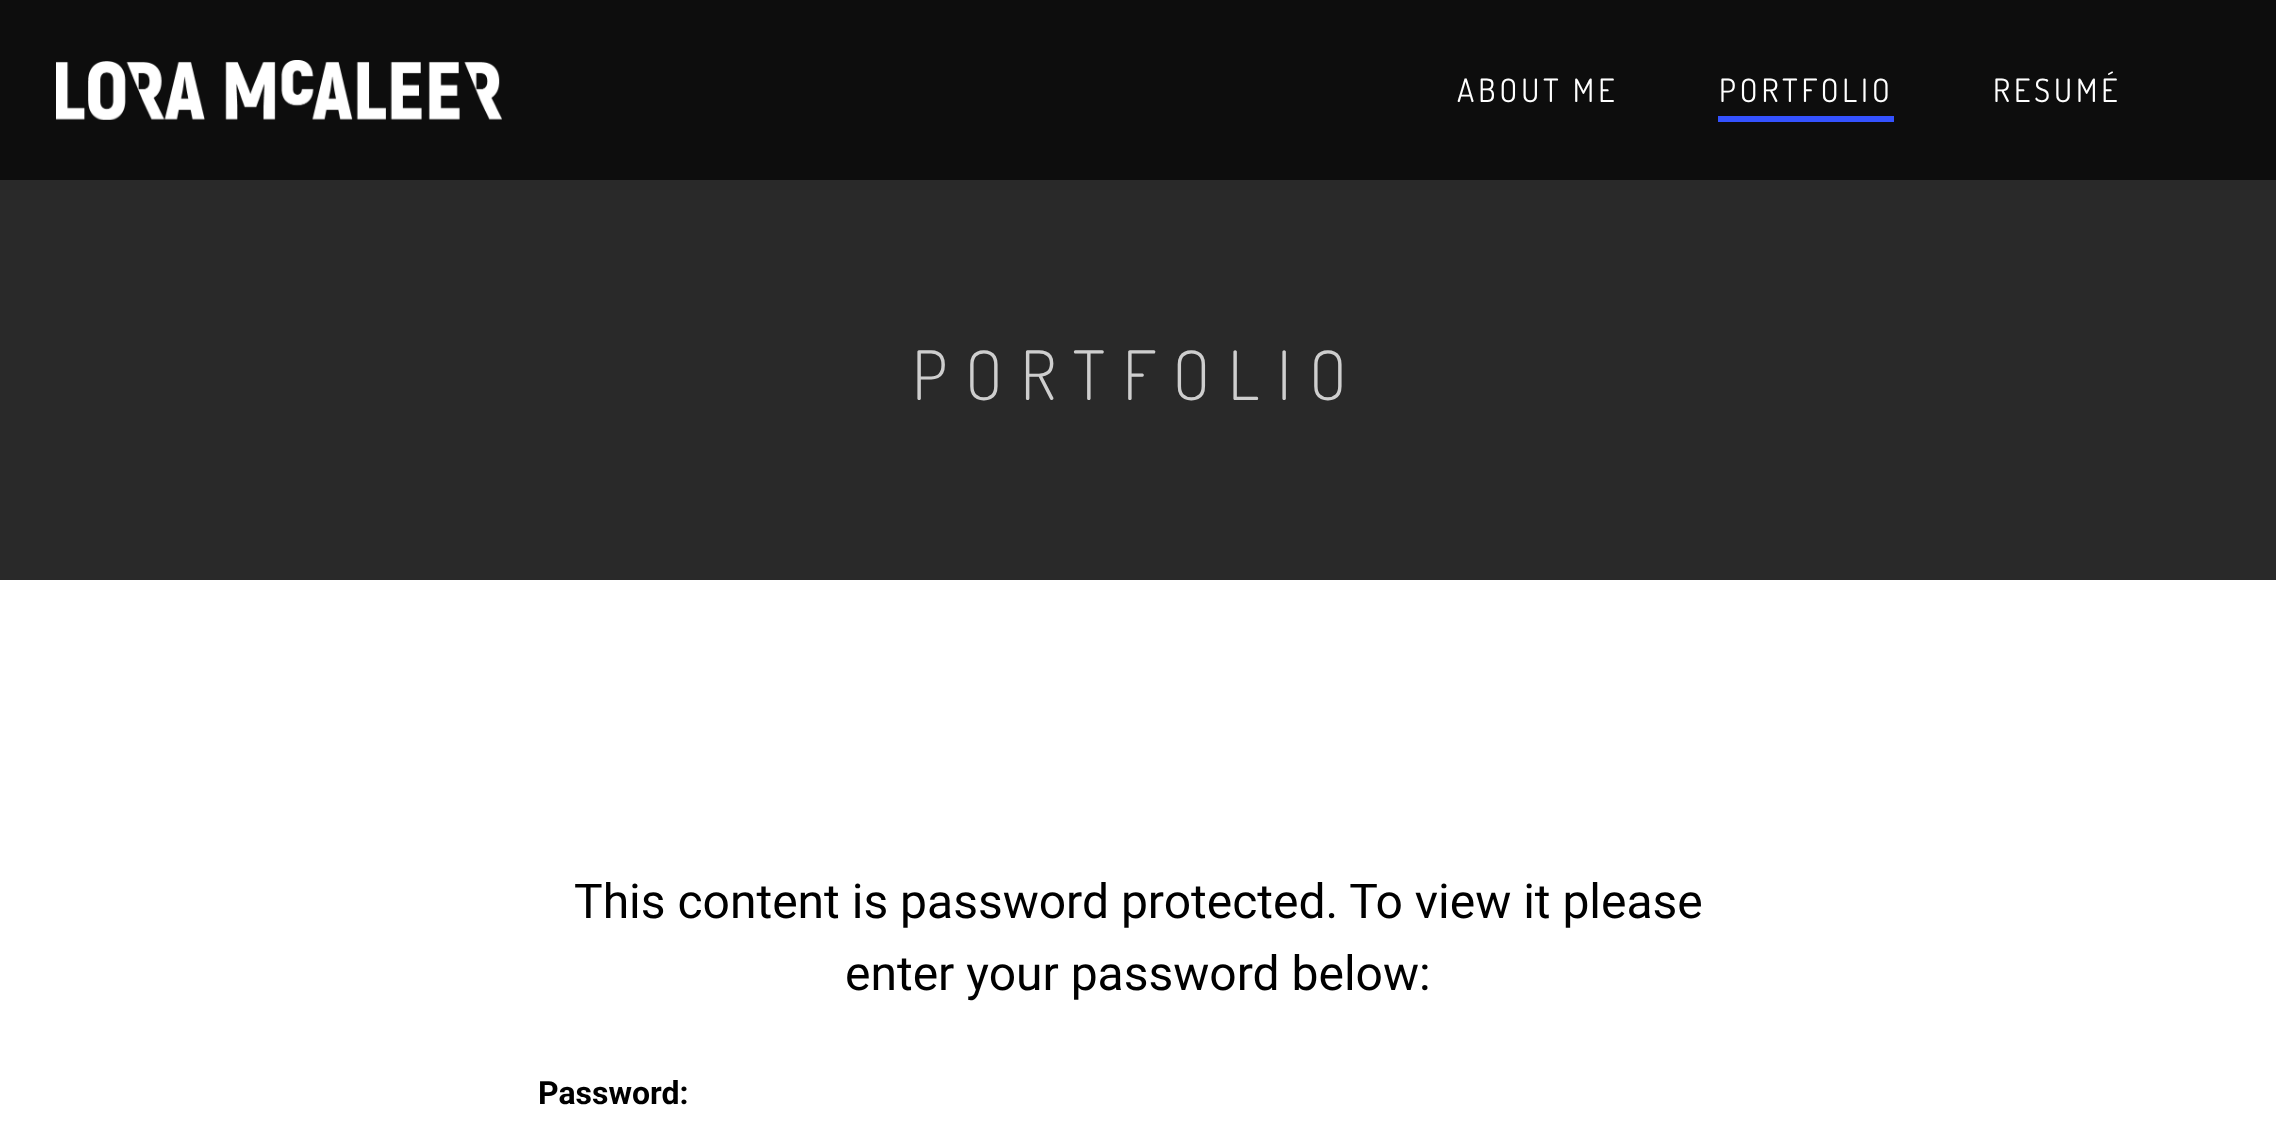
<?xml version="1.0" encoding="UTF-8"?>
<svg xmlns="http://www.w3.org/2000/svg" width="2276" height="1122">
    <rect width="100%" height="100%" fill="#FFFFFF"/>
    <rect x="0" y="0" width="2276" height="180" fill="#0D0D0D"/>
    <image x="56" y="60" width="446" height="60" href="img_01.png"/>
    <text x="1457" y="102" font-family="Dosis" font-size="32" letter-spacing="4" fill="#FFFFFF">ABOUT ME</text>
    <text x="1719" y="102" font-family="Dosis" font-size="32" letter-spacing="4" fill="#FFFFFF">PORTFOLIO</text>
    <rect x="1718" y="116" width="176" height="6" fill="#3452FF"/>
    <text x="1993" y="102" font-family="Dosis" font-size="32" letter-spacing="4" fill="#FFFFFF">RESUMÉ</text>
    <rect x="0" y="180" width="2276" height="400" fill="#292929"/>
    <text x="912" y="400" font-family="Dosis" font-size="68" font-weight="300" letter-spacing="18" fill="#CECECE">PORTFOLIO</text>
    <text x="574" y="918" font-family="Roboto" font-size="48" fill="#000000">This content is password protected. To view it please</text>
    <text x="845" y="990" font-family="Roboto" font-size="48" fill="#000000">enter your password below:</text>
    <text x="538" y="1104" font-family="Roboto" font-size="32" font-weight="700" fill="#000000">Password:</text>
</svg>
